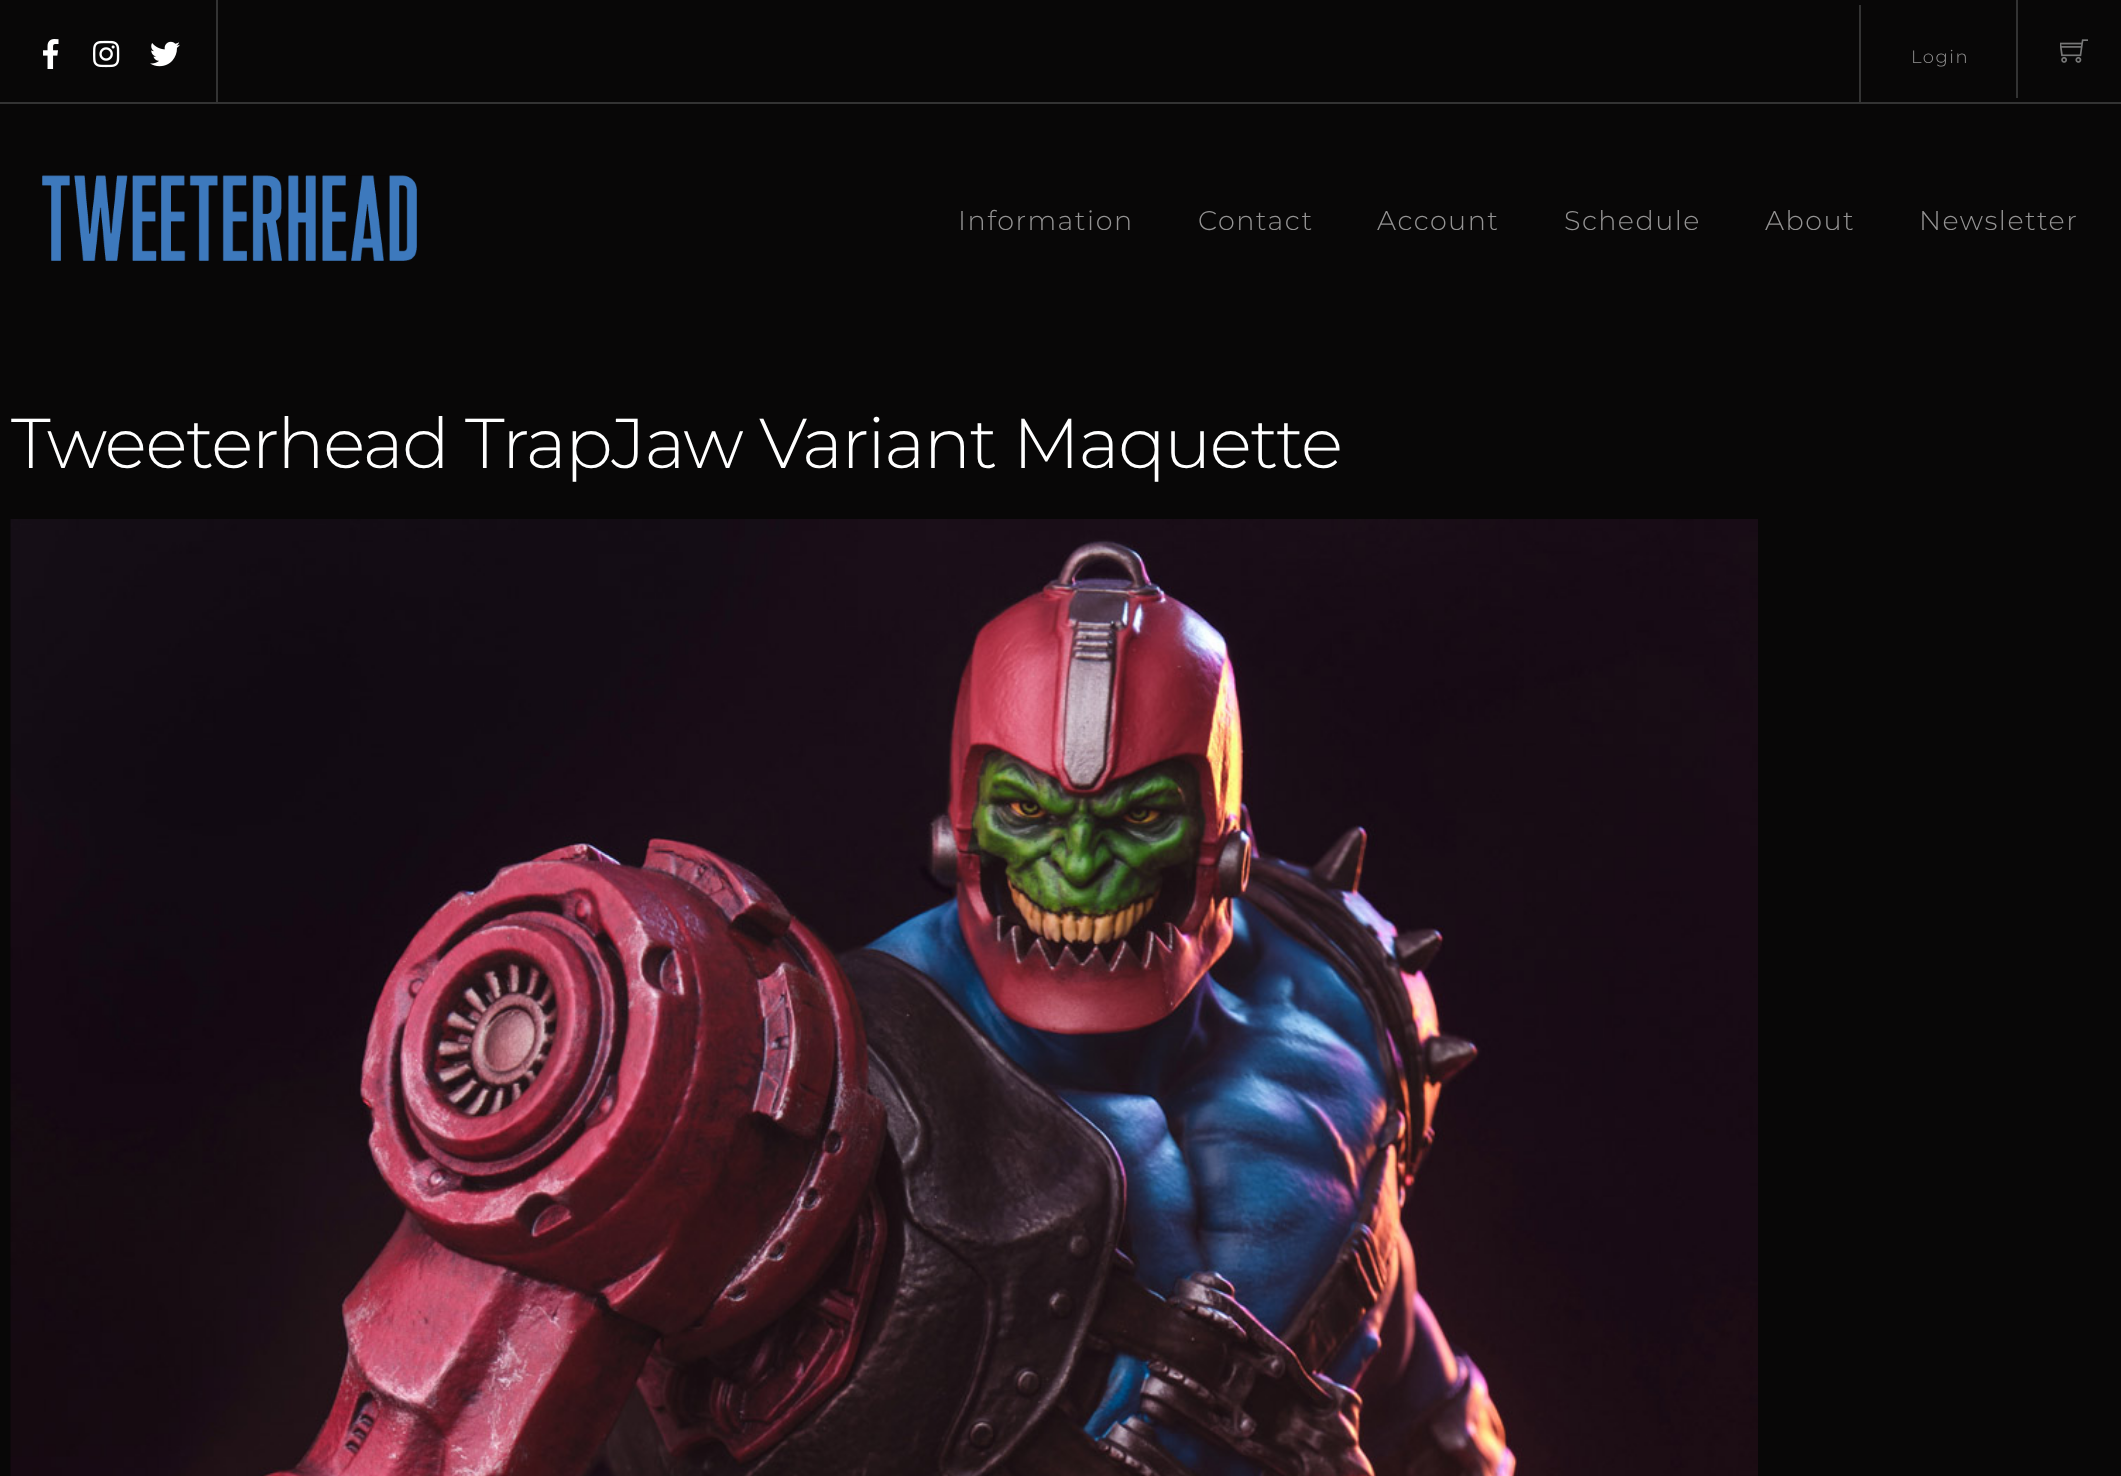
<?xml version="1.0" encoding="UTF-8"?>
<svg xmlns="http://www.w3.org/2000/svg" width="2121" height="1476">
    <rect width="100%" height="100%" fill="#080707"/>
    <rect x="0" y="102" width="2121" height="2" fill="#333333"/>
    <rect x="216" y="0" width="2" height="102" fill="#333333"/>
    <image x="43" y="39" width="16" height="30" href="img_01.png"/>
    <image x="93" y="40" width="27" height="28" href="img_02.png"/>
    <image x="150" y="41" width="30" height="26" href="img_03.png"/>
    <rect x="1859" y="5" width="2" height="97" fill="#333333"/>
    <text x="1911" y="63" font-family="Montserrat" font-size="18" font-weight="300" letter-spacing="1.5" fill="#949393">Login</text>
    <image x="42" y="175" width="375" height="86" href="img_04.png"/>
    <rect x="2016" y="0" width="2" height="98" fill="#333333"/>
    <image x="2060" y="39" width="28" height="24" href="img_05.png"/>
    <text x="958" y="230" font-family="Montserrat" font-size="27" font-weight="300" letter-spacing="1.5" fill="#949393">Information</text>
    <text x="1198" y="230" font-family="Montserrat" font-size="27" font-weight="300" letter-spacing="1.5" fill="#949393">Contact</text>
    <text x="1377" y="230" font-family="Montserrat" font-size="27" font-weight="300" letter-spacing="1.5" fill="#949393">Account</text>
    <text x="1564" y="230" font-family="Montserrat" font-size="27" font-weight="300" letter-spacing="1.5" fill="#949393">Schedule</text>
    <text x="1765" y="230" font-family="Montserrat" font-size="27" font-weight="300" letter-spacing="1.5" fill="#949393">About</text>
    <text x="1919" y="230" font-family="Montserrat" font-size="27" font-weight="300" letter-spacing="1.5" fill="#949393">Newsletter</text>
    <text x="11" y="468" font-family="Montserrat" font-size="70.25" font-weight="300" letter-spacing="-1.4" fill="#FFFFFF">Tweeterhead TrapJaw Variant Maquette</text>
    <image x="10" y="519" width="1748" height="957" href="img_06.png"/>
</svg>
